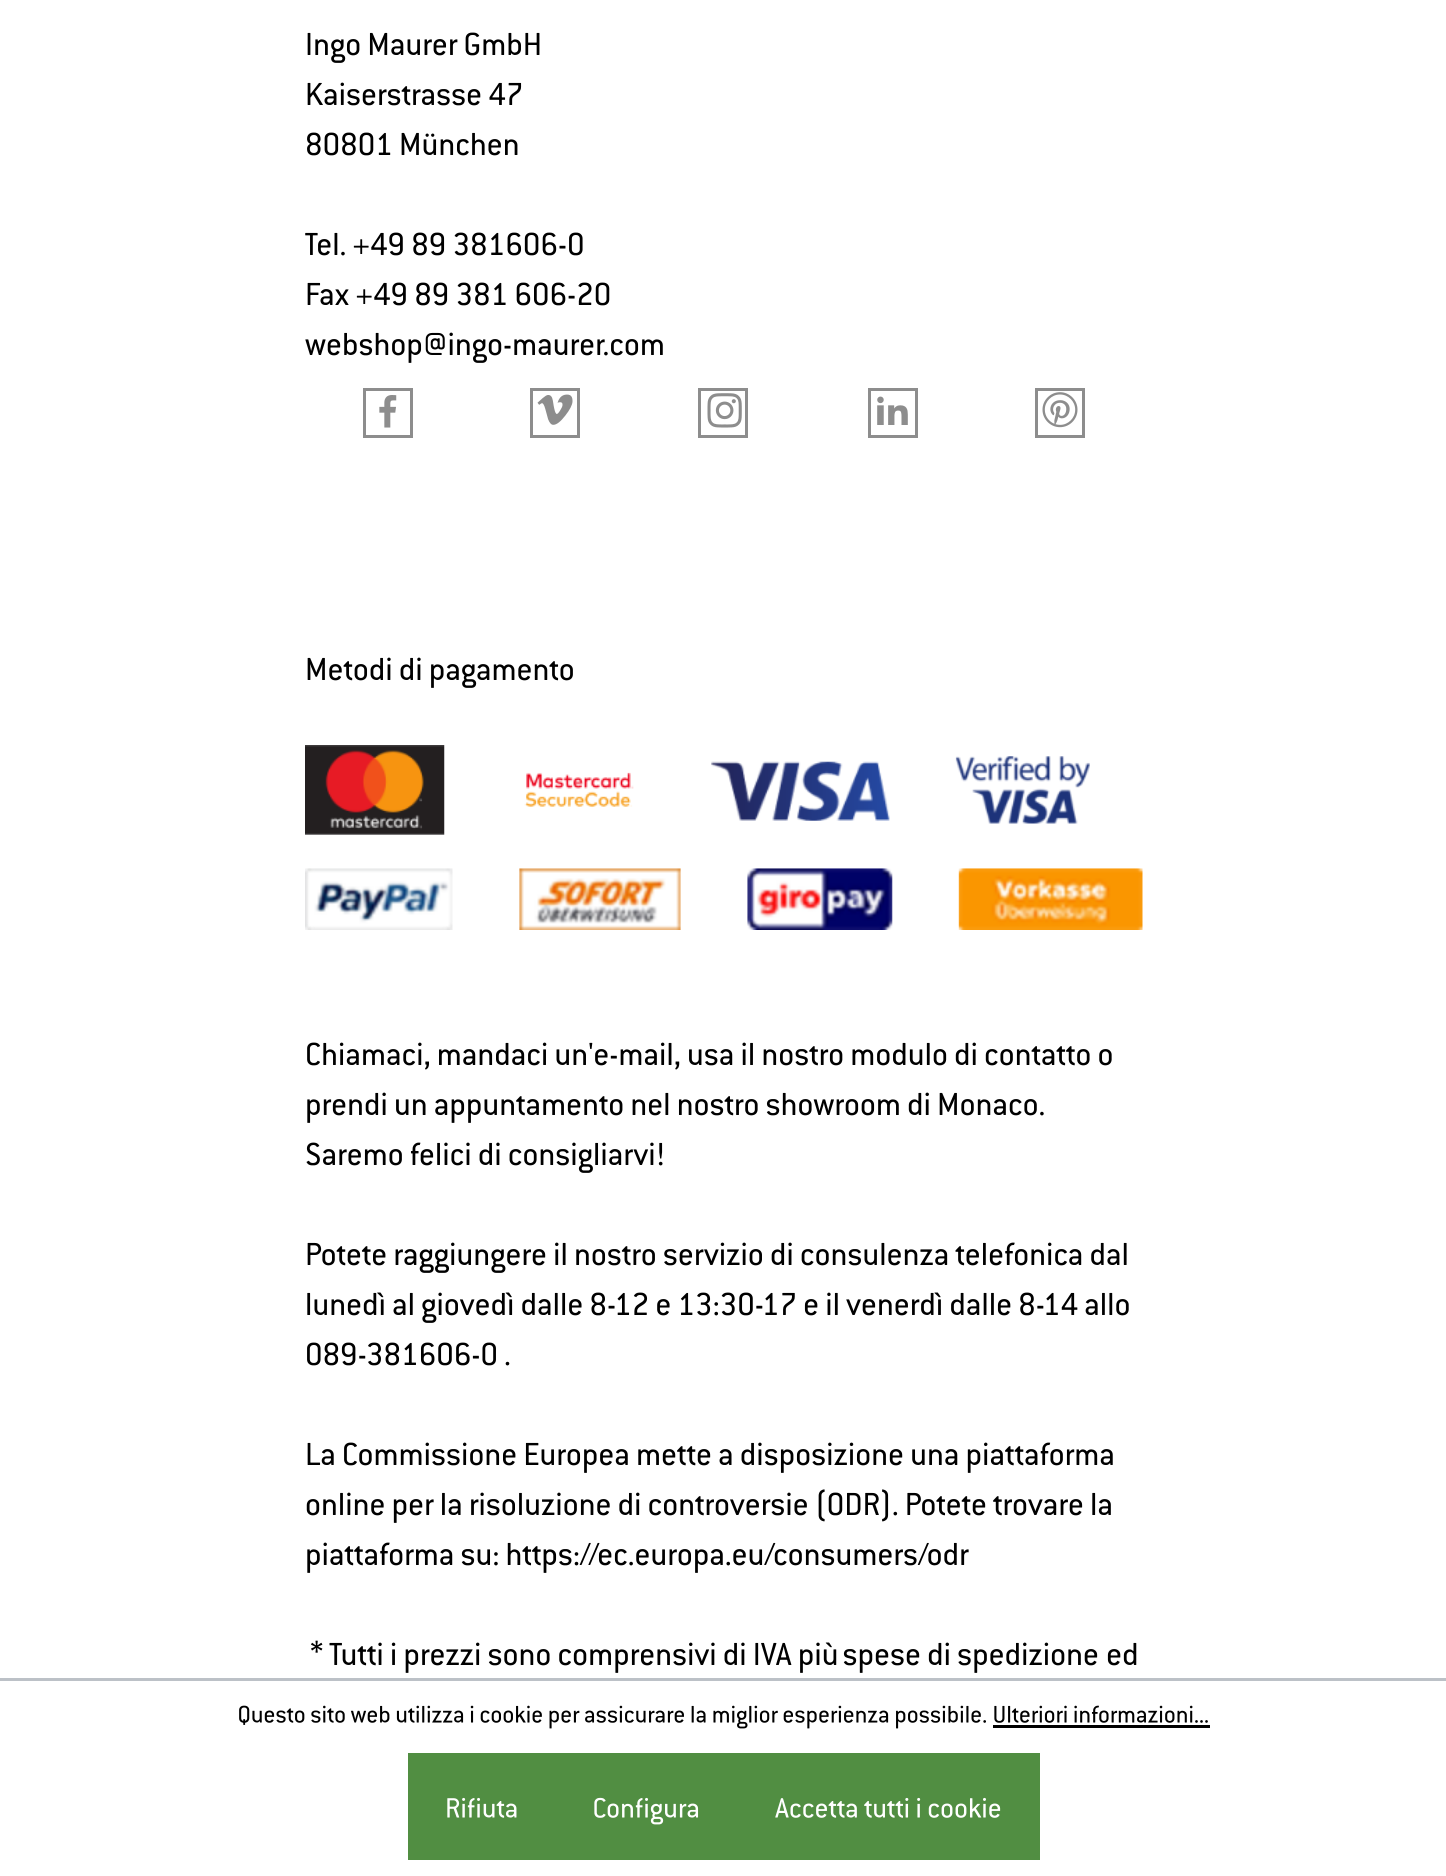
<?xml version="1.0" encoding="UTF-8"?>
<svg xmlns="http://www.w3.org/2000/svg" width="1446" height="1876">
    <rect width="100%" height="100%" fill="#FFFFFF"/>
    <image x="307" y="32" width="233" height="31" href="img_01.png"/>
    <image x="307" y="82" width="215" height="24" href="img_02.png"/>
    <image x="307" y="132" width="211" height="24" href="img_03.png"/>
    <image x="305" y="232" width="278" height="24" href="img_04.png"/>
    <image x="307" y="282" width="303" height="24" href="img_05.png"/>
    <image x="305" y="332" width="358" height="31" href="img_06.png"/>
    <rect x="364.5" y="389.5" width="47" height="47" fill="none" stroke="#8D8D8D" stroke-width="3"/>
    <image x="379" y="395" width="18" height="33" href="img_07.png"/>
    <rect x="531.5" y="389.5" width="47" height="47" fill="none" stroke="#8D8D8D" stroke-width="3"/>
    <image x="537" y="394" width="36" height="31" href="img_08.png"/>
    <rect x="699.5" y="389.5" width="47" height="47" fill="none" stroke="#8D8D8D" stroke-width="3"/>
    <image x="707" y="393" width="35" height="35" href="img_09.png"/>
    <rect x="869.5" y="389.5" width="47" height="47" fill="none" stroke="#8D8D8D" stroke-width="3"/>
    <image x="877" y="396" width="31" height="29" href="img_10.png"/>
    <rect x="1036.5" y="389.5" width="47" height="47" fill="none" stroke="#8D8D8D" stroke-width="3"/>
    <image x="1042" y="392" width="36" height="36" href="img_11.png"/>
    <image x="307" y="657" width="266" height="31" href="img_12.png"/>
    <image x="305" y="745" width="838" height="185" href="img_13.png"/>
    <image x="307" y="1042" width="805" height="28" href="img_14.png"/>
    <image x="307" y="1092" width="737" height="31" href="img_15.png"/>
    <image x="306" y="1142" width="357" height="31" href="img_16.png"/>
    <image x="307" y="1242" width="820" height="31" href="img_17.png"/>
    <image x="307" y="1292" width="822" height="31" href="img_18.png"/>
    <image x="307" y="1342" width="203" height="24" href="img_19.png"/>
    <image x="307" y="1442" width="806" height="31" href="img_20.png"/>
    <image x="306" y="1489" width="805" height="34" href="img_21.png"/>
    <image x="307" y="1542" width="662" height="31" href="img_22.png"/>
    <image x="311" y="1640" width="526" height="33" href="img_23.png"/>
    <image x="843" y="1642" width="255" height="31" href="img_24.png"/>
    <image x="1107" y="1642" width="30" height="24" href="img_25.png"/>
    <rect x="0" y="1678" width="1446" height="3" fill="#BCC1C7"/>
    <image x="239" y="1705" width="747" height="24" href="img_26.png"/>
    <image x="994" y="1705" width="214" height="18" href="img_27.png"/>
    <rect x="993" y="1725" width="217" height="3" fill="#000000"/>
    <rect x="408" y="1753" width="632" height="107" fill="#518E42"/>
    <image x="447" y="1797" width="70" height="21" href="img_28.png"/>
    <image x="594" y="1797" width="105" height="28" href="img_29.png"/>
    <image x="775" y="1797" width="226" height="21" href="img_30.png"/>
</svg>
